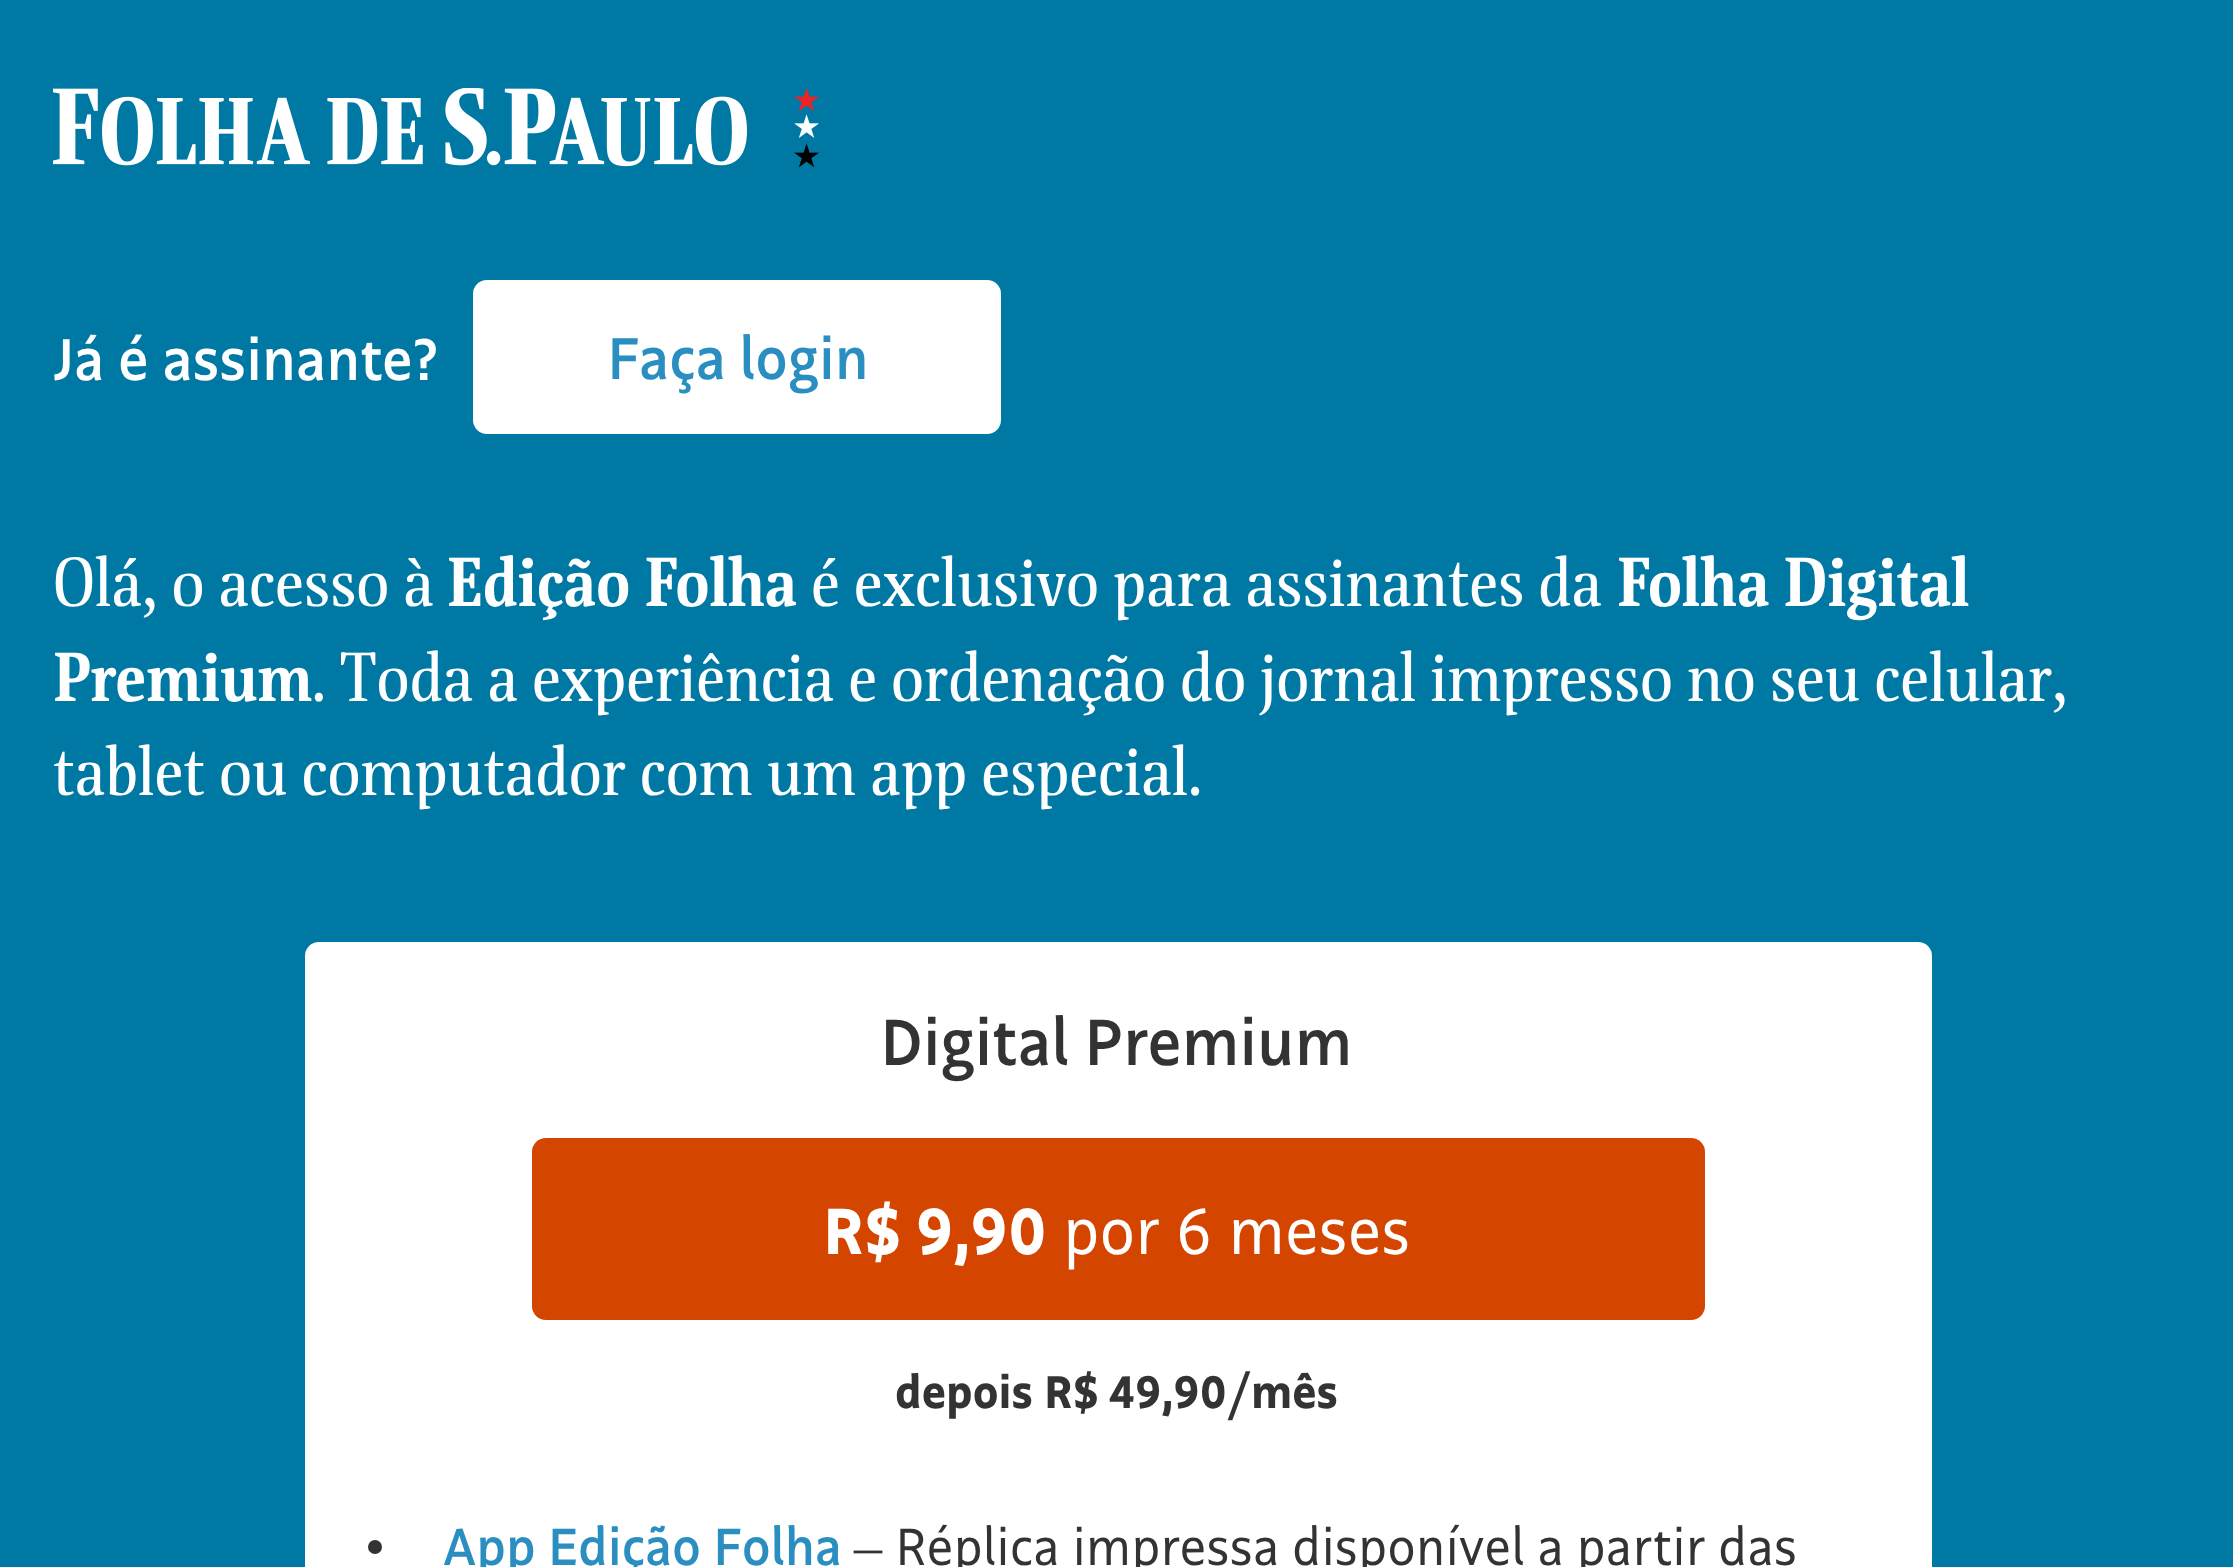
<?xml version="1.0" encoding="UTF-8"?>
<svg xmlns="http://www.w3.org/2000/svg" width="2233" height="1567">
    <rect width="100%" height="100%" fill="#0078A4"/>
    <image x="53" y="88" width="766" height="80" href="img_01.png"/>
    <text x="53" y="380" font-family="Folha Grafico" font-size="63" font-weight="500" fill="#FFFFFF">Já é assinante?</text>
    <rect x="473" y="280" width="528" height="154" rx="14" fill="#FFFFFF"/>
    <text x="607" y="379" font-family="Folha Grafico" font-size="63" font-weight="500" fill="#2A8EC1">Faça login</text>
    <text x="53" y="606" font-family="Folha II" font-size="70" fill="#FFFFFF">Olá, o acesso à</text>
    <text x="447" y="606" font-family="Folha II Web" font-size="70" font-weight="700" fill="#FFFFFF">Edição Folha</text>
    <text x="811" y="606" font-family="Folha II" font-size="70" fill="#FFFFFF">é exclusivo para assinantes da</text>
    <text x="1617" y="606" font-family="Folha II Web" font-size="70" font-weight="700" fill="#FFFFFF">Folha Digital</text>
    <text x="53" y="701" font-family="Folha II Web" font-size="70" font-weight="700" fill="#FFFFFF">Premium</text>
    <text x="312" y="701" font-family="Folha II" font-size="70" fill="#FFFFFF">. Toda a experiência e ordenação do jornal impresso no seu celular,</text>
    <text x="53" y="795" font-family="Folha II" font-size="70" fill="#FFFFFF">tablet ou computador com um app especial.</text>
    <rect x="305" y="942" width="1627" height="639" rx="14" fill="#FFFFFF"/>
    <text x="880" y="1065" font-family="Folha Grafico" font-size="70" font-weight="500" fill="#333333">Digital Premium</text>
    <rect x="532" y="1138" width="1173" height="182" rx="14" fill="#D44500"/>
    <text x="823" y="1254" font-family="Folha Grafico" font-size="70" font-weight="700" fill="#FFFFFF">R$ 9,90</text>
    <text x="1063" y="1254" font-family="Folha Grafico" font-size="70" fill="#FFFFFF">por 6 meses</text>
    <text x="895" y="1408" font-family="Folha Grafico" font-size="49" font-weight="700" fill="#333333">depois</text>
    <text x="1044" y="1408" font-family="Folha Grafico" font-size="49" font-weight="700" fill="#333333">R$ 49,90/mês</text>
    <circle cx="375" cy="1547" r="7" fill="#333333"/>
    <text x="443" y="1565" font-family="Folha Grafico" font-size="56" font-weight="500" fill="#2A8EC1">App Edição Folha</text>
    <text x="854" y="1565" font-family="Liberation Serif" font-size="56" fill="#333333">–</text>
    <text x="895" y="1565" font-family="Folha Grafico" font-size="56" fill="#333333">Réplica impressa disponível a partir das</text>
</svg>
